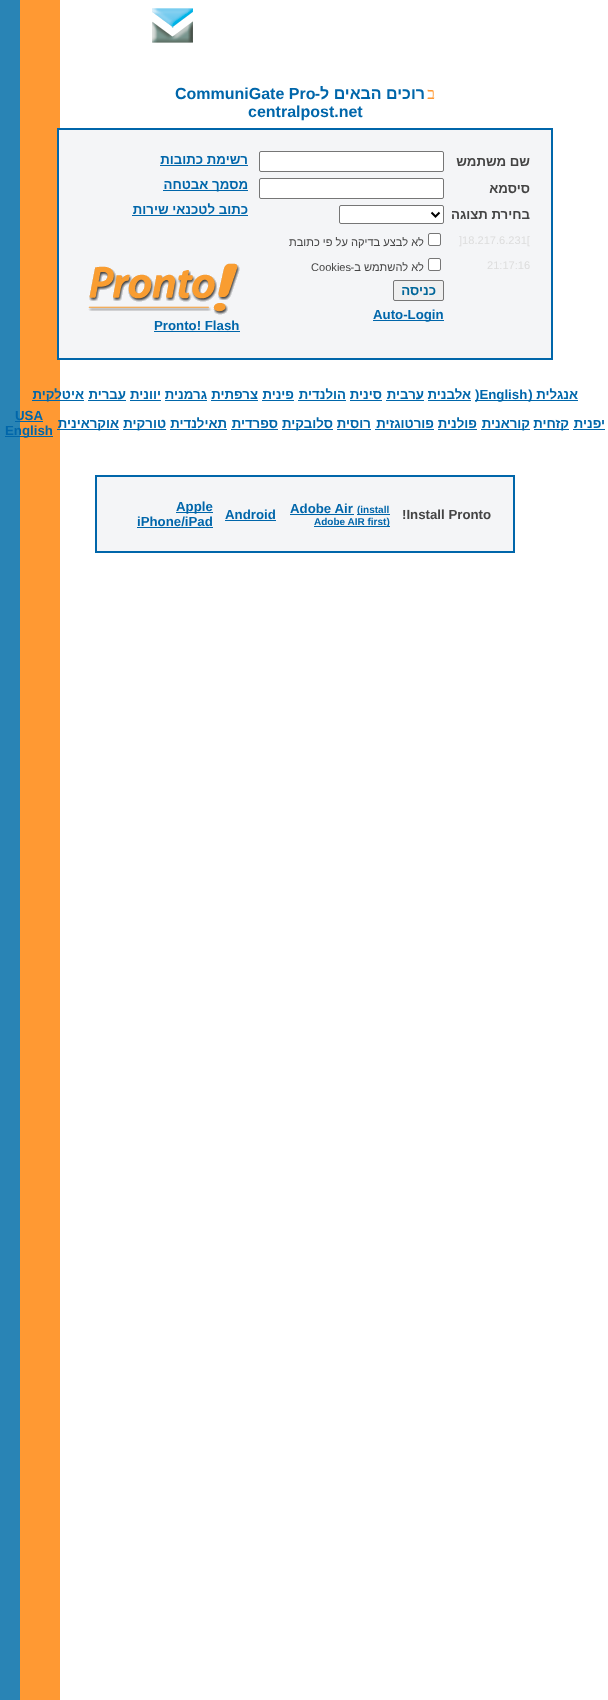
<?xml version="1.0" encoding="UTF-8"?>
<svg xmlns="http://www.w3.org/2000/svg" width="608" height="1700">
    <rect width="100%" height="100%" fill="#FFFFFF"/>
    <image x="0" y="0" width="60" height="1700" href="img_01.png"/>
    <image x="152" y="8" width="41" height="35" href="img_02.png"/>
    <text x="435" y="99" font-family="Noto Sans" font-size="16" font-weight="100" direction="rtl" fill="#FF9933">ב</text>
    <text x="425" y="99" font-family="Liberation Sans" font-size="16" font-weight="700" direction="rtl" fill="#0066AA">רוכים הבאים ל-</text>
    <text x="175" y="99" font-family="Liberation Sans" font-size="16" font-weight="700" fill="#0066AA">CommuniGate Pro</text>
    <text x="248" y="117" font-family="Liberation Sans" font-size="16" font-weight="700" fill="#0066AA">centralpost.net</text>
    <rect x="58" y="129" width="494" height="230" fill="#F4F5F7" stroke="#0066AA" stroke-width="2"/>
    <text x="530" y="166" font-family="Liberation Sans" font-size="13.25" font-weight="700" direction="rtl" fill="#444444">שם משתמש</text>
    <rect x="259.5" y="151.5" width="184" height="20" rx="1.5" fill="#FFFFFF" stroke="#767676"/>
    <text x="530" y="193" font-family="Liberation Sans" font-size="13.25" font-weight="700" direction="rtl" fill="#444444">סיסמא</text>
    <rect x="259.5" y="178.5" width="184" height="20" rx="1.5" fill="#FFFFFF" stroke="#767676"/>
    <text x="530" y="219" font-family="Liberation Sans" font-size="13.25" font-weight="700" direction="rtl" fill="#444444">בחירת תצוגה</text>
    <rect x="339.5" y="205.5" width="104" height="18" rx="1.5" fill="#FFFFFF" stroke="#767676"/>
    <path d="M 431.5 212.5 L 435.5 216.5 L 439.5 212.5" fill="none" stroke="#000000" stroke-width="2"/>
    <text x="459" y="244" font-family="Liberation Sans" font-size="11.1" fill="#DDDDDD">]18.217.6.231[</text>
    <rect x="428.5" y="233.5" width="12" height="12" rx="1.5" fill="#FFFFFF" stroke="#767676"/>
    <text x="424" y="246" font-family="Liberation Sans" font-size="11.1" direction="rtl" fill="#444444">לא לבצע בדיקה על פי כתובת</text>
    <text x="487" y="269" font-family="Liberation Sans" font-size="11.1" fill="#DDDDDD">21:17:16</text>
    <rect x="428.5" y="258.5" width="12" height="12" rx="1.5" fill="#FFFFFF" stroke="#767676"/>
    <text x="424" y="271" font-family="Liberation Sans" font-size="11.1" direction="rtl" fill="#444444">לא להשתמש ב-</text>
    <text x="311" y="271" font-family="Liberation Sans" font-size="11.1" fill="#444444">Cookies</text>
    <rect x="393.5" y="280.5" width="50" height="20" rx="1.5" fill="#EFEFEF" stroke="#767676"/>
    <text x="436" y="295" font-family="Liberation Sans" font-size="13.25" font-weight="700" direction="rtl" fill="#006699">כניסה</text>
    <rect x="373" y="320" width="71" height="1" fill="#0066AA"/>
    <text x="373" y="319" font-family="Liberation Sans" font-size="13.25" font-weight="700" fill="#0066AA">Auto-Login</text>
    <text x="248" y="164" font-family="Liberation Sans" font-size="13.25" font-weight="700" direction="rtl" fill="#0066AA">רשימת כתובות</text>
    <rect x="160" y="165" width="88" height="1" fill="#0066AA"/>
    <rect x="163" y="190" width="85" height="1" fill="#0066AA"/>
    <text font-family="Liberation Sans" font-size="13.25" font-weight="700" direction="rtl" fill="#0066AA">
        <tspan x="248" y="189">מסמך אבטחה</tspan>
        <tspan x="248" y="214">כתוב לטכנאי שירות</tspan>
    </text>
    <rect x="132" y="215" width="116" height="1" fill="#0066AA"/>
    <image x="88" y="263" width="152" height="52" href="img_03.png"/>
    <text x="154" y="330" font-family="Liberation Sans" font-size="13.25" font-weight="700" fill="#0066AA">Pronto! Flash</text>
    <rect x="154" y="331" width="86" height="1" fill="#0066AA"/>
    <rect x="475" y="400" width="103" height="1" fill="#0066AA"/>
    <text x="475" y="399" font-family="Liberation Sans" font-size="13.25" font-weight="700" fill="#0066AA">)English</text>
    <text x="578" y="399" font-family="Liberation Sans" font-size="13.25" font-weight="700" direction="rtl" fill="#0066AA">אנגלית (</text>
    <text x="471" y="399" font-family="Liberation Sans" font-size="13.25" font-weight="700" direction="rtl" fill="#0066AA">אלבנית</text>
    <rect x="428" y="400" width="43" height="1" fill="#0066AA"/>
    <text x="424" y="399" font-family="Liberation Sans" font-size="13.25" font-weight="700" direction="rtl" fill="#0066AA">ערבית</text>
    <rect x="386" y="400" width="38" height="1" fill="#0066AA"/>
    <text x="382" y="399" font-family="Liberation Sans" font-size="13.25" font-weight="700" direction="rtl" fill="#0066AA">סינית</text>
    <rect x="350" y="400" width="32" height="1" fill="#0066AA"/>
    <text x="346" y="399" font-family="Liberation Sans" font-size="13.25" font-weight="700" direction="rtl" fill="#0066AA">הולנדית</text>
    <rect x="298" y="400" width="48" height="1" fill="#0066AA"/>
    <text x="294" y="399" font-family="Liberation Sans" font-size="13.25" font-weight="700" direction="rtl" fill="#0066AA">פינית</text>
    <rect x="262" y="400" width="32" height="1" fill="#0066AA"/>
    <text x="258" y="399" font-family="Liberation Sans" font-size="13.25" font-weight="700" direction="rtl" fill="#0066AA">צרפתית</text>
    <rect x="211" y="400" width="47" height="1" fill="#0066AA"/>
    <text x="207" y="399" font-family="Liberation Sans" font-size="13.25" font-weight="700" direction="rtl" fill="#0066AA">גרמנית</text>
    <rect x="165" y="400" width="42" height="1" fill="#0066AA"/>
    <text x="161" y="399" font-family="Liberation Sans" font-size="13.25" font-weight="700" direction="rtl" fill="#0066AA">יוונית</text>
    <rect x="130" y="400" width="31" height="1" fill="#0066AA"/>
    <text x="126" y="399" font-family="Liberation Sans" font-size="13.25" font-weight="700" direction="rtl" fill="#0066AA">עברית</text>
    <rect x="88" y="400" width="38" height="1" fill="#0066AA"/>
    <rect x="32" y="400" width="52" height="1" fill="#0066AA"/>
    <text x="84" y="399" font-family="Liberation Sans" font-size="13.25" font-weight="700" direction="rtl" fill="#0066AA">איטלקית</text>
    <text x="605" y="428" font-family="Liberation Sans" font-size="13.25" font-weight="700" direction="rtl" fill="#0066AA">יפנית</text>
    <rect x="573" y="429" width="32" height="1" fill="#0066AA"/>
    <rect x="534" y="429" width="35" height="1" fill="#0066AA"/>
    <text x="569" y="428" font-family="Liberation Sans" font-size="13.25" font-weight="700" direction="rtl" fill="#0066AA">קזחית</text>
    <rect x="481" y="429" width="49" height="1" fill="#0066AA"/>
    <text x="530" y="428" font-family="Liberation Sans" font-size="13.25" font-weight="700" direction="rtl" fill="#0066AA">קוראנית</text>
    <text x="477" y="428" font-family="Liberation Sans" font-size="13.25" font-weight="700" direction="rtl" fill="#0066AA">פולנית</text>
    <rect x="438" y="429" width="39" height="1" fill="#0066AA"/>
    <text x="434" y="428" font-family="Liberation Sans" font-size="13.25" font-weight="700" direction="rtl" fill="#0066AA">פורטוגזית</text>
    <rect x="375" y="429" width="59" height="1" fill="#0066AA"/>
    <text x="371" y="428" font-family="Liberation Sans" font-size="13.25" font-weight="700" direction="rtl" fill="#0066AA">רוסית</text>
    <rect x="337" y="429" width="34" height="1" fill="#0066AA"/>
    <rect x="282" y="429" width="51" height="1" fill="#0066AA"/>
    <text x="333" y="428" font-family="Liberation Sans" font-size="13.25" font-weight="700" direction="rtl" fill="#0066AA">סלובקית</text>
    <text x="278" y="428" font-family="Liberation Sans" font-size="13.25" font-weight="700" direction="rtl" fill="#0066AA">ספרדית</text>
    <rect x="231" y="429" width="47" height="1" fill="#0066AA"/>
    <text x="227" y="428" font-family="Liberation Sans" font-size="13.25" font-weight="700" direction="rtl" fill="#0066AA">תאילנדית</text>
    <rect x="170" y="429" width="57" height="1" fill="#0066AA"/>
    <rect x="123" y="429" width="43" height="1" fill="#0066AA"/>
    <text x="166" y="428" font-family="Liberation Sans" font-size="13.25" font-weight="700" direction="rtl" fill="#0066AA">טורקית</text>
    <rect x="57" y="429" width="62" height="1" fill="#0066AA"/>
    <text x="119" y="428" font-family="Liberation Sans" font-size="13.25" font-weight="700" direction="rtl" fill="#0066AA">אוקראינית</text>
    <text x="15" y="420" font-family="Liberation Sans" font-size="13.25" font-weight="700" fill="#0066AA">USA</text>
    <rect x="15" y="421" width="28" height="1" fill="#0066AA"/>
    <rect x="5" y="436" width="48" height="1" fill="#0066AA"/>
    <text x="5" y="435" font-family="Liberation Sans" font-size="13.25" font-weight="700" fill="#0066AA">English</text>
    <rect x="96" y="476" width="418" height="76" fill="#F4F5F7" stroke="#0066AA" stroke-width="2"/>
    <text x="402" y="519" font-family="Liberation Sans" font-size="13.25" font-weight="700" fill="#444444">!Install Pronto</text>
    <rect x="357" y="514" width="33" height="1" fill="#0066AA"/>
    <text x="357" y="513" font-family="Liberation Sans" font-size="10" font-weight="700" fill="#0066AA">(install</text>
    <rect x="290" y="514" width="64" height="1" fill="#0066AA"/>
    <text x="290" y="513" font-family="Liberation Sans" font-size="13.25" font-weight="700" fill="#0066AA">Adobe Air</text>
    <rect x="314" y="526" width="76" height="1" fill="#0066AA"/>
    <text x="314" y="525" font-family="Liberation Sans" font-size="10" font-weight="700" fill="#0066AA">Adobe AIR first)</text>
    <text x="225" y="519" font-family="Liberation Sans" font-size="13.25" font-weight="700" fill="#0066AA">Android</text>
    <rect x="225" y="520" width="51" height="1" fill="#0066AA"/>
    <rect x="176" y="512" width="37" height="1" fill="#0066AA"/>
    <text x="176" y="511" font-family="Liberation Sans" font-size="13.25" font-weight="700" fill="#0066AA">Apple</text>
    <text x="137" y="526" font-family="Liberation Sans" font-size="13.25" font-weight="700" fill="#0066AA">iPhone/iPad</text>
    <rect x="137" y="527" width="76" height="1" fill="#0066AA"/>
</svg>
